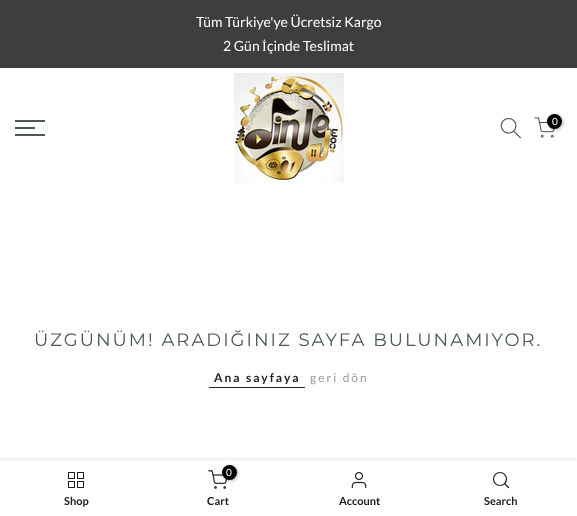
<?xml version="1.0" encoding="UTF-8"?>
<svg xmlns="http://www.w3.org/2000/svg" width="577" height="516">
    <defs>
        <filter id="blur1" x="-50%" y="-200%" width="200%" height="500%"><feGaussianBlur stdDeviation="1.5"/></filter>
        <clipPath id="clip1"><rect x="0" y="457" width="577" height="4"/></clipPath>
        <filter id="blur2" x="-50%" y="-200%" width="200%" height="500%"><feGaussianBlur stdDeviation="4.5"/></filter>
    </defs>
    <rect width="100%" height="100%" fill="#FFFFFF"/>
    <rect x="0" y="0" width="577" height="68" fill="#3E3E3E"/>
    <text x="196" y="27" font-family="Lato" font-size="14" fill="#FFFFFF">Tüm Türkiye'ye Ücretsiz Kargo</text>
    <text x="223" y="51" font-family="Lato" font-size="14" fill="#FFFFFF">2 Gün</text>
    <text x="262" y="51" font-family="Liberation Serif" font-size="14" fill="#FFFFFF">İ</text>
    <text x="267" y="51" font-family="Lato" font-size="14" fill="#FFFFFF">çinde Teslimat</text>
    <rect x="15" y="120" width="30" height="2" fill="#4D5959"/>
    <rect x="15" y="127" width="20" height="2" fill="#4D5959"/>
    <rect x="15" y="134" width="30" height="2" fill="#4D5959"/>
    <image x="234" y="73" width="110" height="110" href="img_01.png"/>
    <image x="500" y="117" width="21" height="22" href="img_02.png"/>
    <image x="534" y="117" width="21" height="21" href="img_03.png"/>
    <rect x="548" y="115" width="15" height="15" rx="7.5" fill="#000000" fill-opacity="0.3" filter="url(#blur1)"/>
    <circle cx="554.5" cy="121.5" r="7.5" fill="#000000"/>
    <text x="552" y="125" font-family="Lato" font-size="10" fill="#FFFFFF">0</text>
    <text x="34" y="346" font-family="Montserrat" font-size="18" letter-spacing="2" fill="#4D5959">ÜZGÜNÜM! ARADIĞINIZ SAYFA BULUNAMIYOR.</text>
    <text x="214" y="382" font-family="Lato" font-size="12" font-weight="700" letter-spacing="2" fill="#222222">Ana sayfaya</text>
    <rect x="209" y="387" width="96" height="1" fill="#222222"/>
    <text x="310" y="382" font-family="Lato" font-size="12" letter-spacing="2" fill="#999999">geri dön</text>
    <g clip-path="url(#clip1)">
        <rect x="0" y="461" width="577" height="55" fill="#000000" fill-opacity="0.12" filter="url(#blur2)"/>
    </g>
    <image x="68" y="472" width="16" height="16" href="img_04.png"/>
    <text x="64" y="505" font-family="Lato" font-size="11" font-weight="700" fill="#222222">Shop</text>
    <image x="208" y="470" width="19" height="19" href="img_05.png"/>
    <rect x="223" y="466" width="15" height="15" rx="7.5" fill="#000000" fill-opacity="0.3" filter="url(#blur1)"/>
    <circle cx="229.5" cy="472.5" r="7.5" fill="#000000"/>
    <text x="226" y="476" font-family="Lato" font-size="10" fill="#FFFFFF">0</text>
    <text x="207" y="505" font-family="Lato" font-size="11" font-weight="700" fill="#222222">Cart</text>
    <image x="351" y="471" width="16" height="18" href="img_06.png"/>
    <text x="339" y="505" font-family="Lato" font-size="11" font-weight="700" fill="#222222">Account</text>
    <circle cx="500" cy="479" r="6.5" fill="none" stroke="#222222" stroke-width="1.2"/>
    <path d="M 508.5 487.5 L 505 484" fill="none" stroke="#222222" stroke-width="1.2" stroke-linecap="round" stroke-linejoin="round"/>
    <text x="484" y="505" font-family="Lato" font-size="11" font-weight="700" fill="#222222">Search</text>
</svg>
